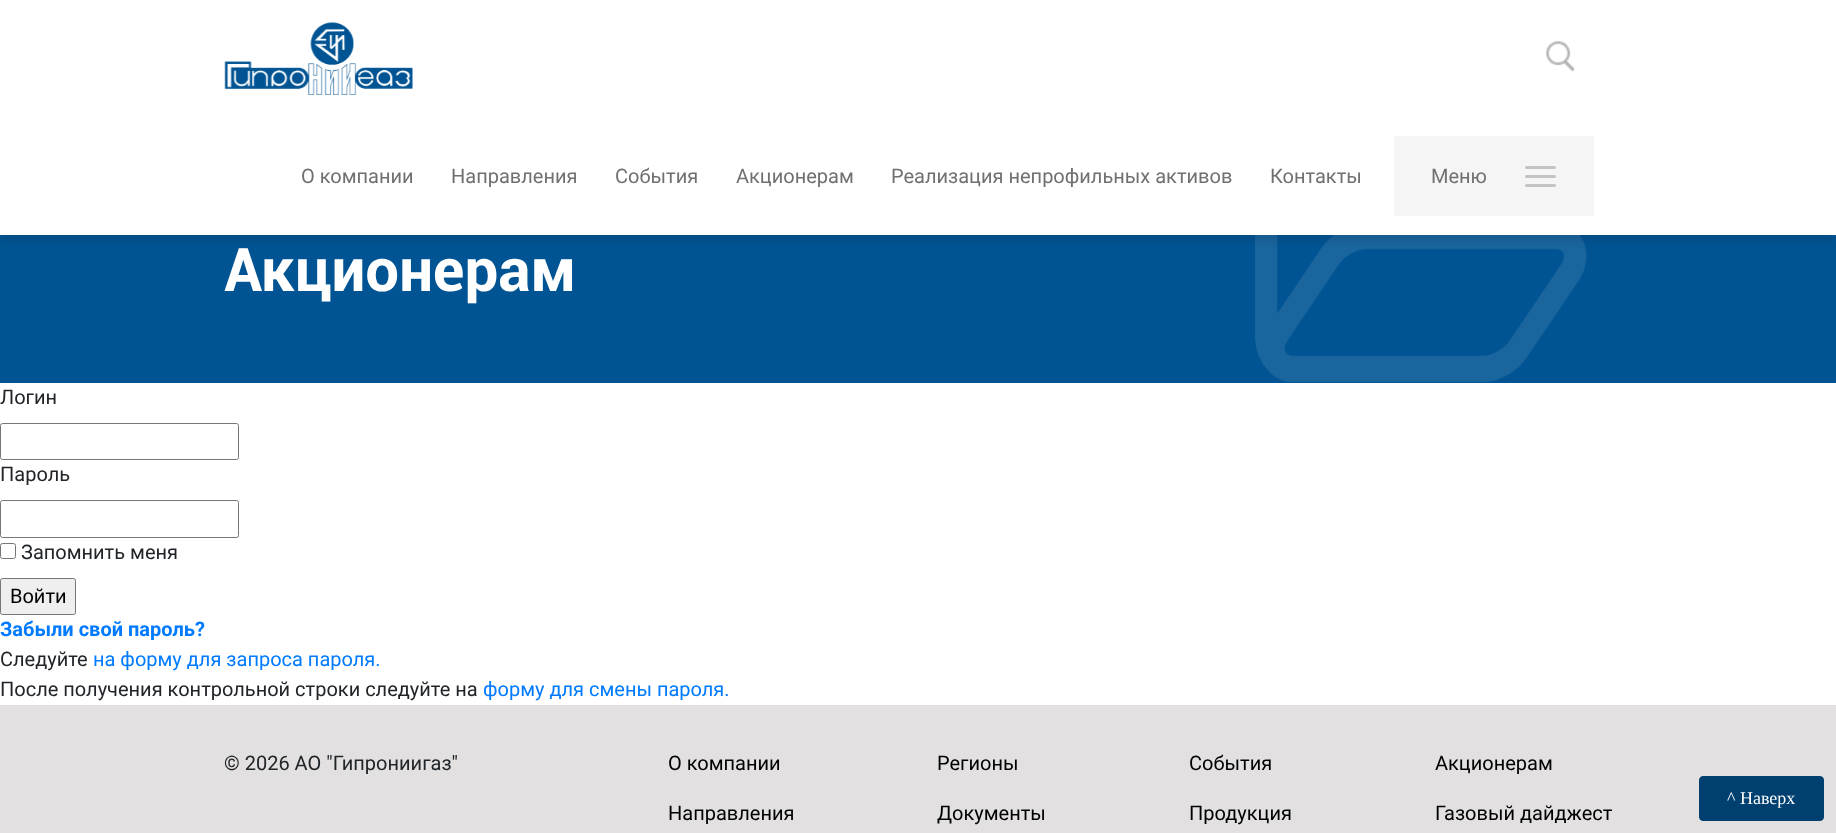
<?xml version="1.0" encoding="UTF-8"?>
<svg xmlns="http://www.w3.org/2000/svg" width="1836" height="833">
    <defs>
        <filter id="blur1" x="-50%" y="-200%" width="200%" height="500%"><feGaussianBlur stdDeviation="5"/></filter>
    </defs>
    <rect width="100%" height="100%" fill="#FFFFFF"/>
    <rect x="0" y="235" width="1836" height="148" fill="#005493"/>
    <image x="1255" y="235" width="332" height="148" href="img_03.png"/>
    <rect x="0" y="6" width="1836" height="235" fill="#000000" fill-opacity="0.1" filter="url(#blur1)"/>
    <rect x="0" y="0" width="1836" height="235" fill="#FFFFFF"/>
    <image x="224" y="22" width="189" height="73" href="img_01.png"/>
    <image x="1546" y="41" width="29" height="31" href="img_02.png"/>
    <text x="301" y="183" font-family="Roboto" font-size="20" fill="#707070">О компании</text>
    <text x="451" y="183" font-family="Roboto" font-size="20" fill="#707070">Направления</text>
    <text x="615" y="183" font-family="Roboto" font-size="20" fill="#707070">События</text>
    <text x="736" y="183" font-family="Roboto" font-size="20" fill="#707070">Акционерам</text>
    <text x="891" y="183" font-family="Roboto" font-size="20" fill="#707070">Реализация непрофильных активов</text>
    <text x="1270" y="183" font-family="Roboto" font-size="20" fill="#707070">Контакты</text>
    <rect x="1394" y="136" width="200" height="80" fill="#F5F5F5"/>
    <text x="1431" y="183" font-family="Roboto" font-size="20" fill="#707070">Меню</text>
    <rect x="1525" y="166" width="31" height="3" rx="1.5" fill="#C3C3C3"/>
    <rect x="1525" y="175" width="31" height="3" rx="1.5" fill="#C3C3C3"/>
    <rect x="1525" y="184" width="31" height="3" rx="1.5" fill="#C3C3C3"/>
    <text x="224" y="291" font-family="'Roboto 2'" font-size="60" font-weight="700" fill="#FFFFFF">Акционерам</text>
    <text x="0" y="404" font-family="Roboto" font-size="20" fill="#212529">Логин</text>
    <rect x="0.5" y="423.5" width="238" height="36" rx="2" fill="none" stroke="#767676"/>
    <text x="0" y="481" font-family="Roboto" font-size="20" fill="#212529">Пароль</text>
    <rect x="0.5" y="500.5" width="238" height="37" rx="2" fill="none" stroke="#767676"/>
    <rect x="0.5" y="543.5" width="15" height="15" rx="2" fill="none" stroke="#767676"/>
    <text x="21" y="559" font-family="Roboto" font-size="20" fill="#212529">Запомнить меня</text>
    <rect x="0.5" y="578.5" width="75" height="36" rx="2" fill="#EFEFEF" stroke="#767676"/>
    <text x="10" y="603" font-family="Roboto" font-size="20" fill="#000000">Войти</text>
    <text x="0" y="636" font-family="Roboto" font-size="20" font-weight="700" fill="#007BFF">Забыли свой пароль?</text>
    <text x="0" y="666" font-family="Roboto" font-size="20" fill="#212529">Следуйте</text>
    <text x="93" y="666" font-family="Roboto" font-size="20" fill="#007BFF">на форму для запроса пароля.</text>
    <text x="0" y="696" font-family="Roboto" font-size="20" fill="#212529">После получения контрольной строки следуйте на</text>
    <text x="483" y="696" font-family="Roboto" font-size="20" fill="#007BFF">форму для смены пароля.</text>
    <rect x="0" y="705" width="1836" height="128" fill="#E2E0E0"/>
    <text x="224" y="770" font-family="Roboto" font-size="20" fill="#212529">© 2026 АО "Гипрониигаз"</text>
    <text x="668" y="770" font-family="Roboto" font-size="20" fill="#000000">О компании</text>
    <text x="668" y="820" font-family="Roboto" font-size="20" fill="#000000">Направления</text>
    <text x="937" y="770" font-family="Roboto" font-size="20" fill="#000000">Регионы</text>
    <text x="937" y="820" font-family="Roboto" font-size="20" fill="#000000">Документы</text>
    <text x="1189" y="770" font-family="Roboto" font-size="20" fill="#000000">События</text>
    <text x="1189" y="820" font-family="Roboto" font-size="20" fill="#000000">Продукция</text>
    <text x="1435" y="770" font-family="Roboto" font-size="20" fill="#000000">Акционерам</text>
    <text x="1435" y="820" font-family="Roboto" font-size="20" fill="#000000">Газовый дайджест</text>
    <rect x="1699.5" y="776.5" width="124" height="44" rx="3.5" fill="#004070" stroke="#004070"/>
    <text x="1727" y="804" font-family="Liberation Serif" font-size="18" fill="#FFFFFF">^ Наверх</text>
</svg>
